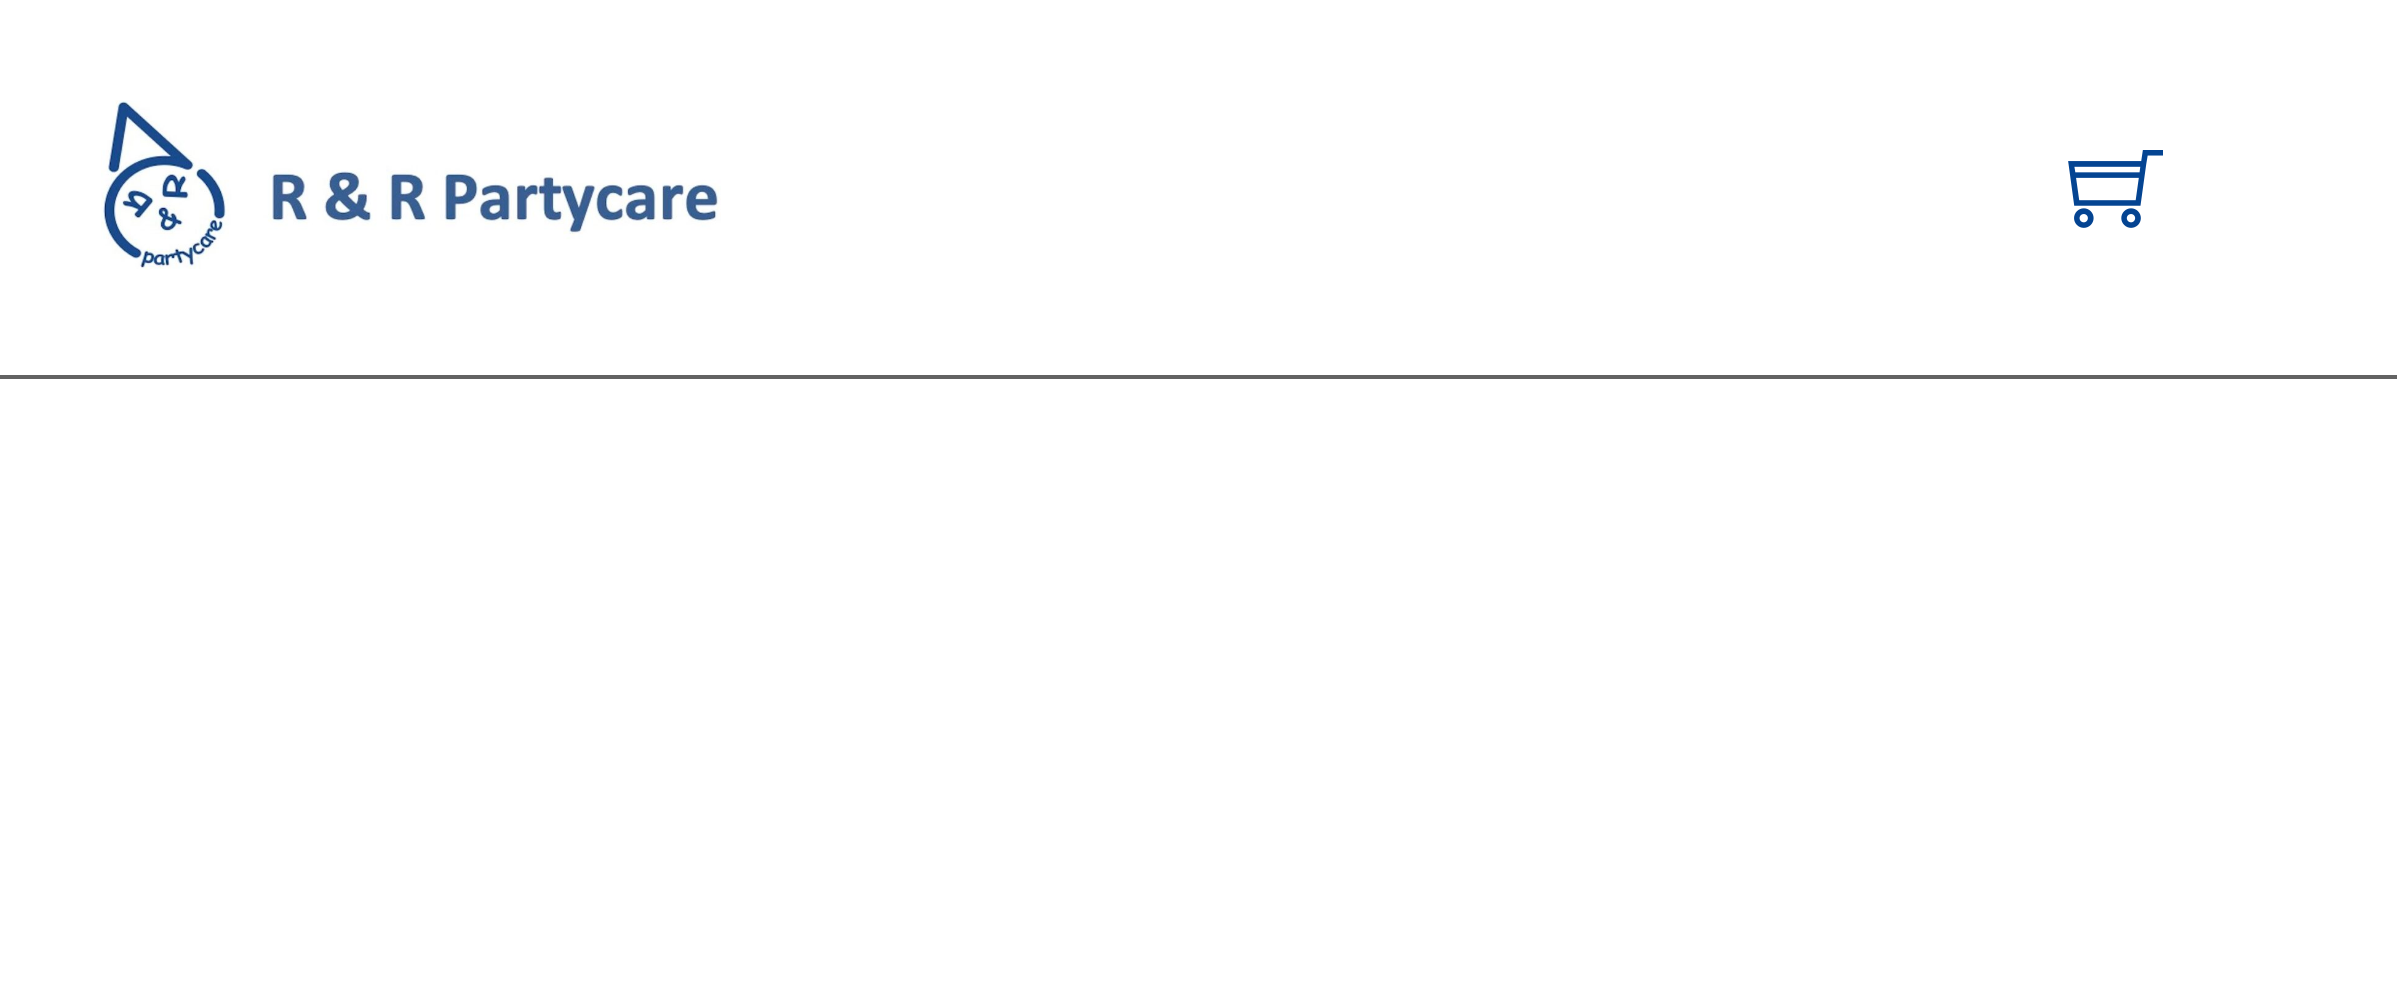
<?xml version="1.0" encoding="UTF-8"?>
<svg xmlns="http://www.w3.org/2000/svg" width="2397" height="1001">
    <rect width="100%" height="100%" fill="#FFFFFF"/>
    <rect x="0" y="375" width="2397" height="4" fill="#636363"/>
    <image x="101" y="100" width="620" height="170" href="img_01.png"/>
    <image x="2068" y="150" width="95" height="78" href="img_02.png"/>
</svg>
